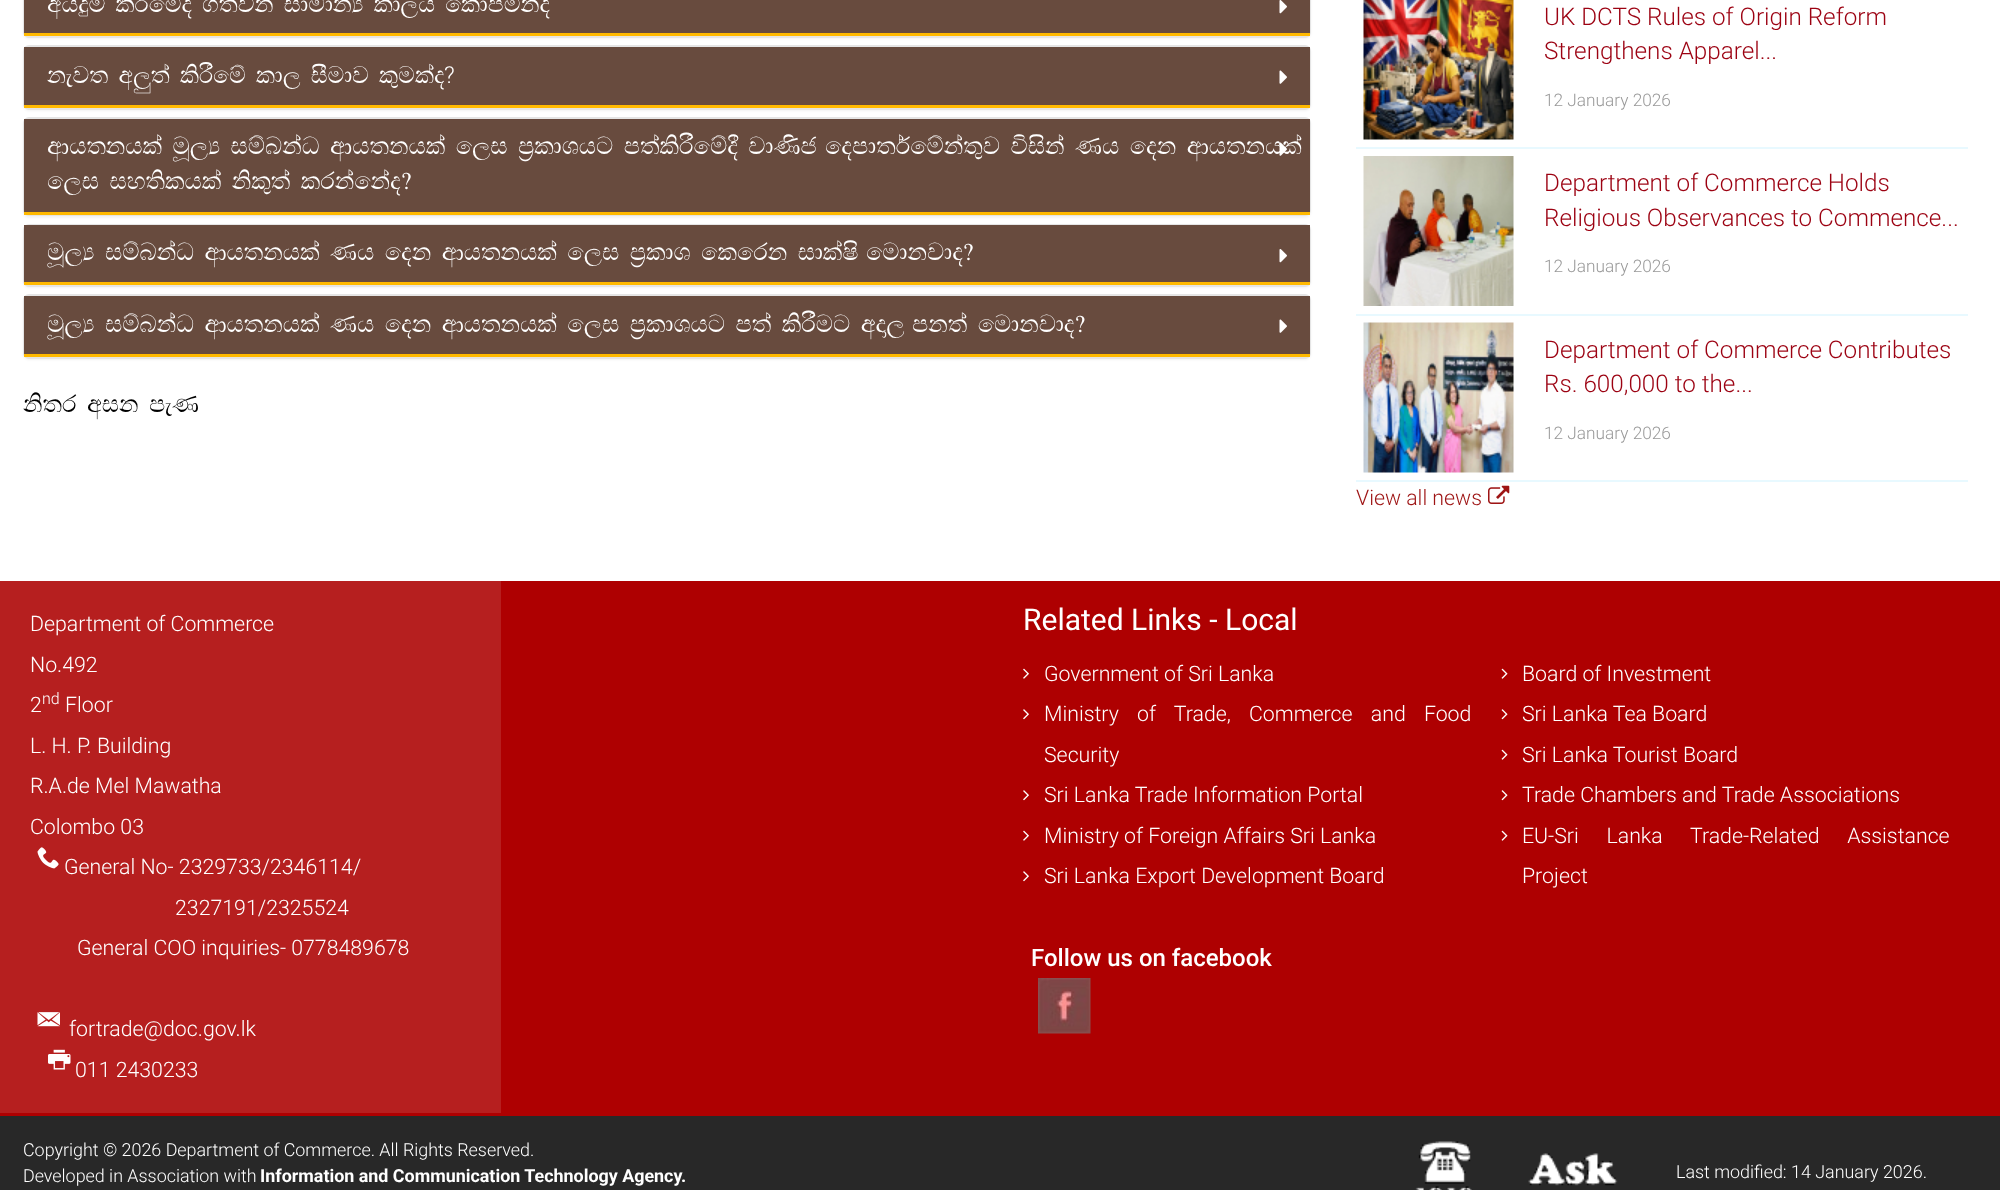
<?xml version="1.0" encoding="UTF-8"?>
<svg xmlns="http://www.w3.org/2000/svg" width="2000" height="1190">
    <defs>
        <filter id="blur1" x="-50%" y="-200%" width="200%" height="500%"><feGaussianBlur stdDeviation="1"/></filter>
    </defs>
    <rect width="100%" height="100%" fill="#FFFFFF"/>
    <rect x="23" y="-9" width="1288" height="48" rx="6" fill="#000000" fill-opacity="0.05" filter="url(#blur1)"/>
    <rect x="24" y="-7" width="1286" height="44" rx="5" fill="none" stroke="#E5E5E5" stroke-width="2"/>
    <rect x="24" y="0" width="1286" height="33" fill="#684B3E"/>
    <rect x="24" y="33" width="1286" height="3" fill="#FFB900"/>
    <text x="47" y="12" word-spacing="-1.5" font-family="FreeSerif" font-size="23.4" fill="#FFFFFF">අයදුම් කිරීමේදී ගතවන සාමාන්‍ය කාලය කොපමනද</text>
    <image x="1279" y="0" width="8" height="14" href="img_01.png"/>
    <rect x="23" y="47" width="1288" height="64" rx="6" fill="#000000" fill-opacity="0.05" filter="url(#blur1)"/>
    <rect x="24" y="46" width="1286" height="63" rx="5" fill="none" stroke="#E5E5E5" stroke-width="2"/>
    <rect x="24" y="47" width="1286" height="58" fill="#684B3E"/>
    <rect x="24" y="105" width="1286" height="3" fill="#FFB900"/>
    <text x="47" y="83" word-spacing="-1.5" font-family="FreeSerif" font-size="23.4" fill="#FFFFFF">නැවත අලුත් කිරීමේ කාල සීමාව කුමක්ද</text>
    <text x="444" y="83" font-family="Roboto" font-size="23.4" font-weight="300" fill="#FFFFFF">?</text>
    <image x="1279" y="70" width="8" height="14" href="img_02.png"/>
    <rect x="23" y="119" width="1288" height="99" rx="6" fill="#000000" fill-opacity="0.05" filter="url(#blur1)"/>
    <rect x="24" y="118" width="1286" height="97" rx="5" fill="none" stroke="#E5E5E5" stroke-width="2"/>
    <rect x="24" y="119" width="1286" height="93" fill="#684B3E"/>
    <rect x="24" y="212" width="1286" height="3" fill="#FFB900"/>
    <text x="47" y="154" word-spacing="-1.5" font-family="FreeSerif" font-size="24" fill="#FFFFFF">ආයතනයක් මූල්‍ය සම්බන්ධ ආයතනයක් ලෙස ප්‍රකාශයට පත්කිරීමේදී වාණිජ</text>
    <text x="825" y="154" word-spacing="-1.5" font-family="FreeSerif" font-size="24" fill="#FFFFFF">දෙපාර්තමේන්තුව විසින් ණය දෙන ආයතනයක්</text>
    <image x="1279" y="142" width="8" height="14" href="img_03.png"/>
    <text x="47" y="189" word-spacing="-1.5" font-family="FreeSerif" font-size="24" fill="#FFFFFF">ලෙස සහතිකයක් නිකුත් කරන්නේද?</text>
    <rect x="23" y="225" width="1288" height="63" rx="6" fill="#000000" fill-opacity="0.05" filter="url(#blur1)"/>
    <rect x="24" y="225" width="1286" height="61" rx="5" fill="none" stroke="#E5E5E5" stroke-width="2"/>
    <rect x="24" y="225" width="1286" height="57" fill="#684B3E"/>
    <rect x="24" y="282" width="1286" height="3" fill="#FFB900"/>
    <text x="47" y="260" word-spacing="-1.5" font-family="FreeSerif" font-size="24" fill="#FFFFFF">මූල්‍ය සම්බන්ධ ආයතනයක් ණය දෙන ආයතනයක් ලෙස ප්‍රකාශ කෙරෙන සාක්ෂි</text>
    <text x="866" y="260" word-spacing="-1.5" font-family="FreeSerif" font-size="24" fill="#FFFFFF">මොනවාද?</text>
    <image x="1279" y="249" width="8" height="14" href="img_01.png"/>
    <rect x="23" y="296" width="1288" height="64" rx="6" fill="#000000" fill-opacity="0.05" filter="url(#blur1)"/>
    <rect x="24" y="295" width="1286" height="63" rx="5" fill="none" stroke="#E5E5E5" stroke-width="2"/>
    <rect x="24" y="296" width="1286" height="58" fill="#684B3E"/>
    <rect x="24" y="354" width="1286" height="3" fill="#FFB900"/>
    <text x="47" y="332" word-spacing="-1.5" font-family="FreeSerif" font-size="24" fill="#FFFFFF">මූල්‍ය සම්බන්ධ ආයතනයක් ණය දෙන ආයතනයක් ලෙස ප්‍රකාශයට පත් කිරීමට අදාල</text>
    <text x="912" y="332" word-spacing="-1.5" font-family="FreeSerif" font-size="24" fill="#FFFFFF">පනත් මොනවාද?</text>
    <image x="1279" y="319" width="8" height="14" href="img_02.png"/>
    <text x="23" y="412" word-spacing="-1.5" font-family="FreeSerif" font-size="24" fill="#000000">නිතර අසන පැණ</text>
    <rect x="1356" y="147" width="612" height="2" fill="#E8F9FF"/>
    <image x="1363" y="0" width="151" height="140" href="img_04.png"/>
    <text font-family="Roboto" font-size="24.25" font-weight="300" fill="#9C0212">
        <tspan x="1544" y="25">UK DCTS Rules of Origin Reform</tspan>
        <tspan x="1544" y="59">Strengthens Apparel...</tspan>
    </text>
    <text x="1544" y="106" font-family="Roboto" font-size="17.25" font-weight="300" fill="#999999">12 January 2026</text>
    <rect x="1356" y="314" width="612" height="2" fill="#E8F9FF"/>
    <image x="1363" y="156" width="151" height="150" href="img_05.png"/>
    <text font-family="Roboto" font-size="24.25" font-weight="300" fill="#9C0212">
        <tspan x="1544" y="191">Department of Commerce Holds</tspan>
        <tspan x="1544" y="226">Religious Observances to Commence...</tspan>
    </text>
    <text x="1544" y="272" font-family="Roboto" font-size="17.25" font-weight="300" fill="#999999">12 January 2026</text>
    <rect x="1356" y="480" width="612" height="2" fill="#E8F9FF"/>
    <image x="1363" y="322" width="151" height="151" href="img_06.png"/>
    <text font-family="Roboto" font-size="24.25" font-weight="300" fill="#9C0212">
        <tspan x="1544" y="358">Department of Commerce Contributes</tspan>
        <tspan x="1544" y="392">Rs. 600,000 to the...</tspan>
    </text>
    <text x="1544" y="439" font-family="Roboto" font-size="17.25" font-weight="300" fill="#999999">12 January 2026</text>
    <text x="1356" y="505" font-family="Roboto" font-size="21.3" font-weight="300" fill="#9E1414">View all news</text>
    <image x="1488" y="485" width="22" height="19" href="img_07.png"/>
    <rect x="0" y="581" width="2000" height="535" fill="#AE0001"/>
    <rect x="0" y="581" width="501" height="532" fill="#B61F1F"/>
    <text font-family="Roboto" font-size="21.3" font-weight="300" fill="#FFFFFF">
        <tspan x="30" y="631">Department of Commerce</tspan>
        <tspan x="30" y="672">No.492</tspan>
        <tspan x="30" y="712">2</tspan>
    </text>
    <text x="42" y="704" font-family="Roboto" font-size="16" font-weight="300" fill="#FFFFFF">nd</text>
    <text x="65" y="712" font-family="Roboto" font-size="21.3" font-weight="300" fill="#FFFFFF">Floor</text>
    <text font-family="Roboto" font-size="21.3" font-weight="300" fill="#FFFFFF">
        <tspan x="30" y="753">L. H. P. Building</tspan>
        <tspan x="30" y="793">R.A.de Mel Mawatha</tspan>
        <tspan x="30" y="834">Colombo 03</tspan>
    </text>
    <image x="37" y="847" width="22" height="22" href="img_08.png"/>
    <text x="64" y="874" font-family="Roboto" font-size="21.3" font-weight="300" fill="#FFFFFF">General No- 2329733/2346114/</text>
    <text x="175" y="915" font-family="Roboto" font-size="21.3" font-weight="300" fill="#FFFFFF">2327191/2325524</text>
    <text x="77" y="955" font-family="Roboto" font-size="21.3" font-weight="300" fill="#FFFFFF">General COO inquiries- 0778489678</text>
    <image x="37" y="1012" width="23" height="15" href="img_09.png"/>
    <text x="69" y="1036" font-family="Roboto" font-size="21.3" font-weight="300" fill="#FFFFFF">fortrade@doc.gov.lk</text>
    <image x="48" y="1049" width="23" height="21" href="img_10.png"/>
    <text x="75" y="1077" font-family="Roboto" font-size="21.3" font-weight="300" fill="#FFFFFF">011 2430233</text>
    <text x="1023" y="630" font-family="Roboto" font-size="30" fill="#FFFFFF">Related Links - Local</text>
    <image x="1023" y="668" width="6" height="11" href="img_11.png"/>
    <text x="1044" y="681" font-family="Roboto" font-size="21.3" font-weight="300" fill="#FFFFFF">Government of Sri Lanka</text>
    <image x="1023" y="709" width="6" height="11" href="img_12.png"/>
    <text font-family="Roboto" font-size="21.3" font-weight="300" fill="#FFFFFF">
        <tspan x="1044" y="721" word-spacing="13">Ministry of Trade, Commerce and Food</tspan>
        <tspan x="1044" y="762">Security</tspan>
    </text>
    <image x="1023" y="790" width="6" height="11" href="img_12.png"/>
    <text x="1044" y="802" font-family="Roboto" font-size="21.3" font-weight="300" fill="#FFFFFF">Sri Lanka Trade Information Portal</text>
    <image x="1023" y="830" width="6" height="11" href="img_11.png"/>
    <text x="1044" y="843" font-family="Roboto" font-size="21.3" font-weight="300" fill="#FFFFFF">Ministry of Foreign Affairs Sri Lanka</text>
    <image x="1023" y="871" width="6" height="11" href="img_12.png"/>
    <text x="1044" y="883" font-family="Roboto" font-size="21.3" font-weight="300" fill="#FFFFFF">Sri Lanka Export Development Board</text>
    <text x="1031" y="966" font-family="Roboto" font-size="24" font-weight="500" fill="#FFFFFF">Follow us on facebook</text>
    <image x="1038" y="978" width="53" height="56" href="img_13.png"/>
    <image x="1501" y="668" width="7" height="11" href="img_14.png"/>
    <text x="1522" y="681" font-family="Roboto" font-size="21.3" font-weight="300" fill="#FFFFFF">Board of Investment</text>
    <image x="1501" y="709" width="7" height="11" href="img_15.png"/>
    <text x="1522" y="721" font-family="Roboto" font-size="21.3" font-weight="300" fill="#FFFFFF">Sri Lanka Tea Board</text>
    <image x="1501" y="749" width="7" height="11" href="img_14.png"/>
    <text x="1522" y="762" font-family="Roboto" font-size="21.3" font-weight="300" fill="#FFFFFF">Sri Lanka Tourist Board</text>
    <image x="1501" y="790" width="7" height="11" href="img_15.png"/>
    <text x="1522" y="802" font-family="Roboto" font-size="21.3" font-weight="300" fill="#FFFFFF">Trade Chambers and Trade Associations</text>
    <image x="1501" y="830" width="7" height="11" href="img_14.png"/>
    <text font-family="Roboto" font-size="21.3" font-weight="300" fill="#FFFFFF">
        <tspan x="1522" y="843" word-spacing="22.5">EU-Sri Lanka Trade-Related Assistance</tspan>
        <tspan x="1522" y="883">Project</tspan>
    </text>
    <rect x="0" y="1116" width="2000" height="74" fill="#282828"/>
    <text font-family="Roboto" font-size="17.9" font-weight="300" fill="#FFFFFF">
        <tspan x="23" y="1156">Copyright © 2026 Department of Commerce. All Rights Reserved.</tspan>
        <tspan x="23" y="1182">Developed in Association with</tspan>
    </text>
    <text x="260" y="1182" font-family="Roboto" font-size="17.9" font-weight="700" fill="#FFFFFF">Information and Communication Technology Agency.</text>
    <image x="1415" y="1141" width="203" height="49" href="img_16.png"/>
    <text x="1676" y="1178" font-family="Roboto" font-size="17.9" font-weight="300" fill="#FFFFFF">Last modified: 14 January 2026.</text>
</svg>
